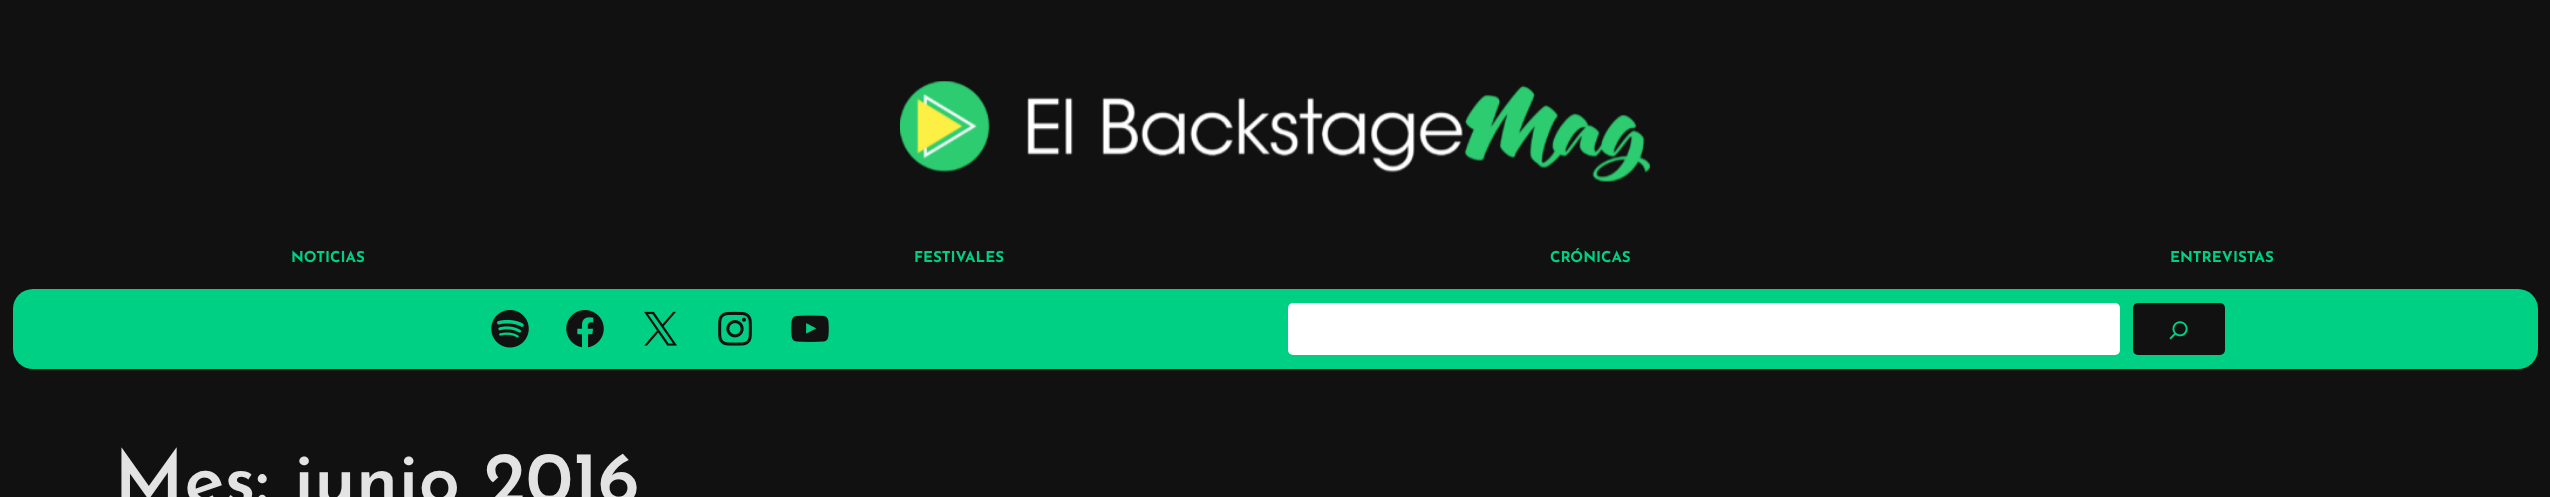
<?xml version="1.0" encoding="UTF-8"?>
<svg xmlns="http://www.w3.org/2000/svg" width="2550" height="497">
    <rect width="100%" height="100%" fill="#111111"/>
    <image x="900" y="81" width="750" height="101" href="img_01.png"/>
    <text x="291" y="262" font-family="Josefin Sans" font-size="15" font-weight="700" fill="#00D084">NOTICIAS</text>
    <text x="914" y="262" font-family="Josefin Sans" font-size="15" font-weight="700" fill="#00D084">FESTIVALES</text>
    <text x="1550" y="262" font-family="Josefin Sans" font-size="15" font-weight="700" fill="#00D084">CRÓNICAS</text>
    <text x="2170" y="262" font-family="Josefin Sans" font-size="15" font-weight="700" fill="#00D084">ENTREVISTAS</text>
    <rect x="13" y="289" width="2525" height="80" rx="20" fill="#00D084"/>
    <image x="491" y="310" width="38" height="38" href="img_02.png"/>
    <image x="566" y="310" width="38" height="38" href="img_03.png"/>
    <image x="644" y="311" width="33" height="35" href="img_04.png"/>
    <image x="718" y="311" width="34" height="35" href="img_05.png"/>
    <image x="791" y="315" width="38" height="27" href="img_06.png"/>
    <rect x="1288" y="303" width="832" height="52" rx="5" fill="#FFFFFF"/>
    <rect x="2133" y="303" width="92" height="52" rx="5" fill="#111111"/>
    <image x="2169" y="321" width="19" height="19" href="img_07.png"/>
    <text x="114" y="504" font-family="Josefin Sans" font-size="75" font-weight="600" fill="#E3E3E3">Mes: junio 2016</text>
</svg>
